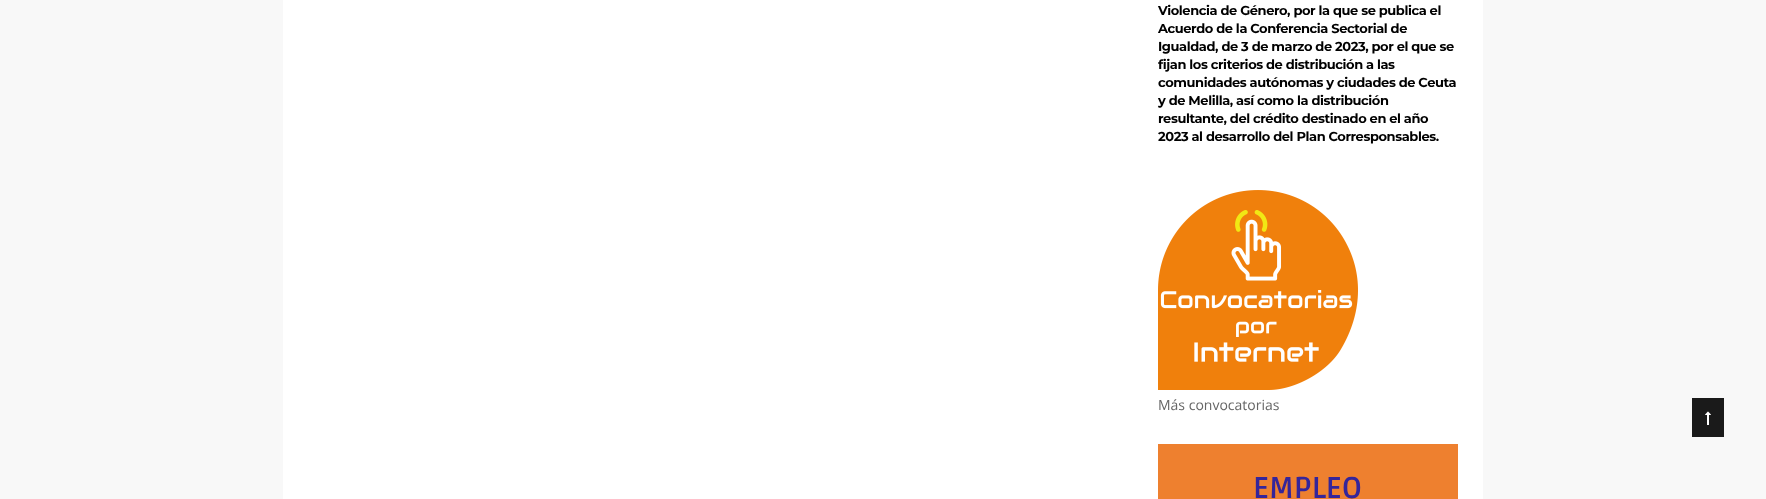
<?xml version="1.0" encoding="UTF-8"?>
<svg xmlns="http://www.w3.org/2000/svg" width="1766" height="499">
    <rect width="100%" height="100%" fill="#F8F8F8"/>
    <rect x="283" y="0" width="1200" height="499" fill="#FFFFFF"/>
    <text font-family="Montserrat" font-size="13" font-weight="100" letter-spacing="-0.4" fill="#000000">
        <tspan x="1158" y="15">Violencia de Género, por la que se publica el</tspan>
        <tspan x="1158" y="33">Acuerdo de la Conferencia Sectorial de</tspan>
        <tspan x="1158" y="51">Igualdad, de 3 de marzo de 2023, por el que se</tspan>
        <tspan x="1158" y="69">fijan los criterios de distribución a las</tspan>
        <tspan x="1158" y="87">comunidades autónomas y ciudades de Ceuta</tspan>
        <tspan x="1158" y="105">y de Melilla, así como la distribución</tspan>
        <tspan x="1158" y="123">resultante, del crédito destinado en el año</tspan>
        <tspan x="1158" y="141">2023 al desarrollo del Plan Corresponsables.</tspan>
    </text>
    <image x="1158" y="190" width="200" height="200" href="img_01.png"/>
    <text x="1158" y="410" font-family="Open Sans" font-size="14" fill="#666666">Más convocatorias</text>
    <rect x="1158" y="444" width="300" height="55" fill="#EE802F"/>
    <text x="1253" y="498" font-family="Ruda" font-size="30" font-weight="700" fill="#35259A">EMPLEO</text>
    <rect x="1692" y="398" width="32" height="39" fill="#1A1A1A"/>
    <image x="1705" y="411" width="6" height="14" href="img_02.png"/>
</svg>
